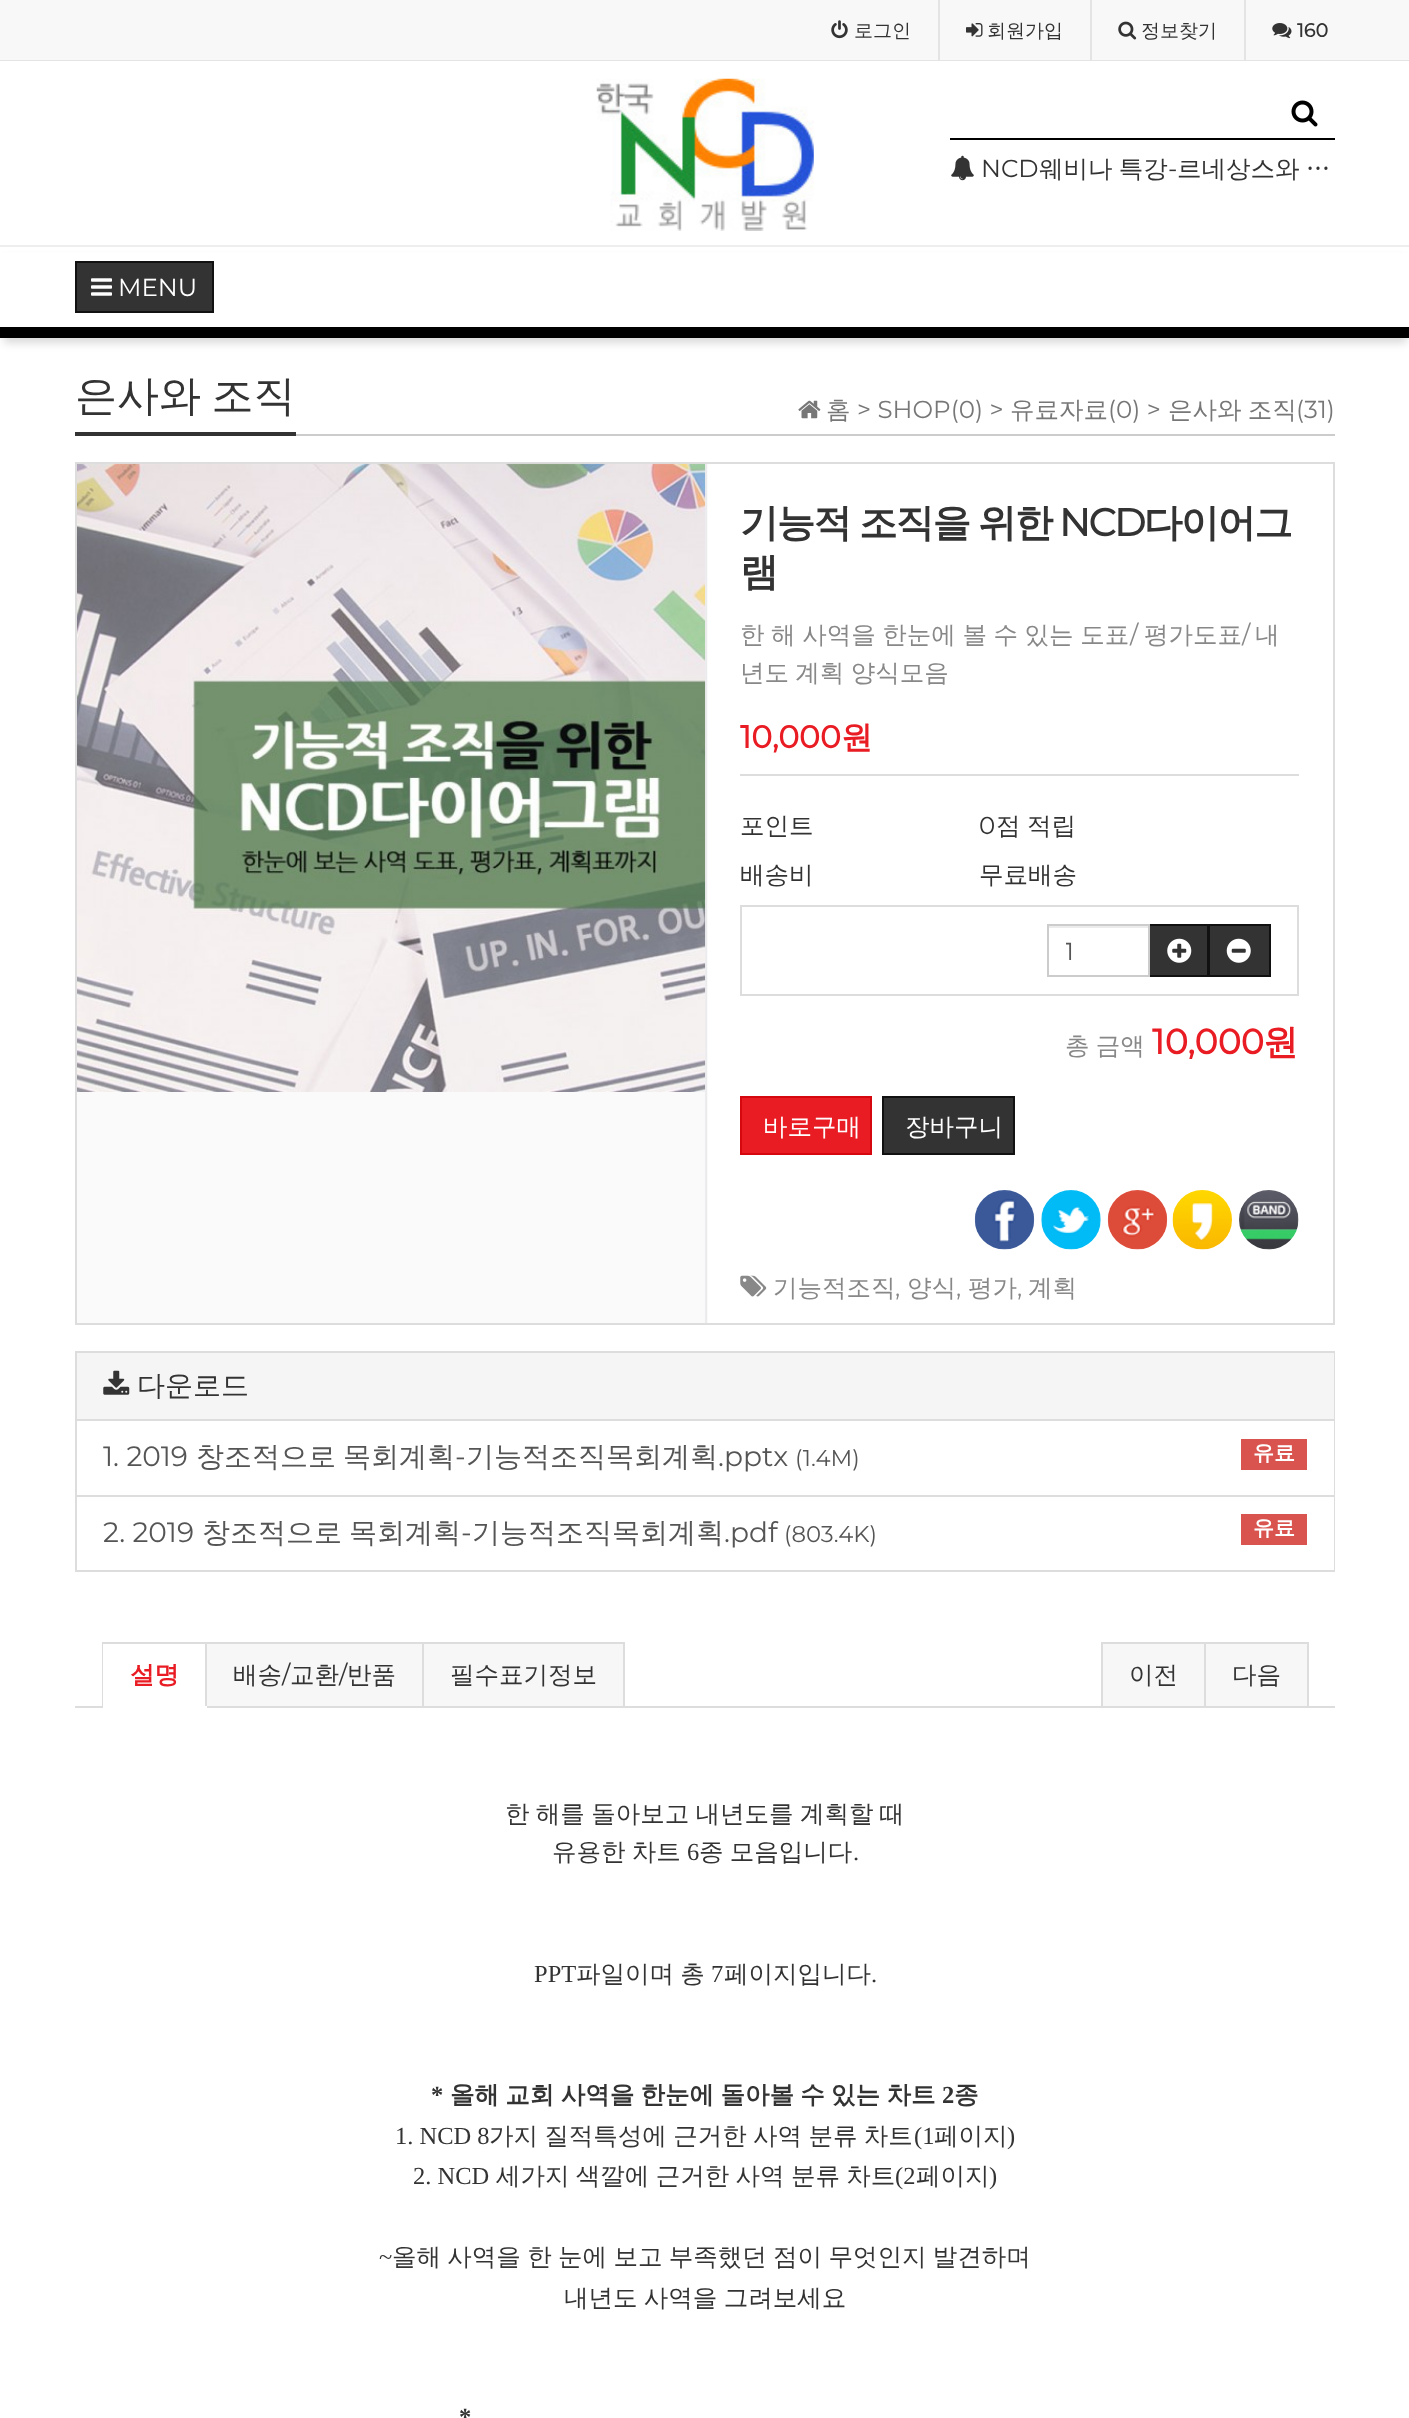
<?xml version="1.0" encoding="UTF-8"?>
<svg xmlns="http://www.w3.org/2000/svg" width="1409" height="2418">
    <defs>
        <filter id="blur1" x="-50%" y="-200%" width="200%" height="500%"><feGaussianBlur stdDeviation="4.5"/></filter>
        <clipPath id="clip1"><rect x="1066" y="935" width="65" height="31"/></clipPath>
    </defs>
    <rect width="100%" height="100%" fill="#FFFFFF"/>
    <rect x="0" y="0" width="1409" height="60" fill="#F8F8F8"/>
    <rect x="0" y="60" width="1409" height="1" fill="#E4E4E4"/>
    <rect x="938" y="0" width="2" height="60" fill="#E4E4E4"/>
    <image x="831" y="20" width="17" height="19" href="img_01.png"/>
    <text x="854" y="37" font-family="WenQuanYi Zen Hei" font-size="19" font-weight="500" fill="#333333">로그인</text>
    <rect x="1090" y="0" width="2" height="60" fill="#E4E4E4"/>
    <image x="966" y="23" width="17" height="14" href="img_02.png"/>
    <text x="987" y="37" font-family="WenQuanYi Zen Hei" font-size="19" font-weight="500" fill="#333333">회원가입</text>
    <rect x="1244" y="0" width="2" height="60" fill="#E4E4E4"/>
    <image x="1118" y="21" width="19" height="19" href="img_03.png"/>
    <text x="1141" y="37" font-family="WenQuanYi Zen Hei" font-size="19" font-weight="500" fill="#333333">정보찾기</text>
    <image x="1272" y="23" width="20" height="16" href="img_04.png"/>
    <text x="1297" y="37" font-family="Montserrat" font-size="19" font-weight="700" fill="#333333">160</text>
    <image x="596" y="78" width="218" height="153" href="img_05.png"/>
    <rect x="950" y="138" width="385" height="2" fill="#000000"/>
    <image x="1291" y="100" width="27" height="27" href="img_06.png"/>
    <image x="951" y="155" width="23" height="26" href="img_07.png"/>
    <text x="981" y="177" font-family="Montserrat" font-size="24.5" font-weight="100" fill="#333333">NCD</text>
    <text x="1039" y="177" word-spacing="-1" font-family="WenQuanYi Zen Hei" font-size="24.5" font-weight="500" fill="#333333">웨비나 특강</text>
    <text x="1168" y="177" font-family="Montserrat" font-size="24.5" font-weight="100" fill="#333333">-</text>
    <text x="1177" y="177" word-spacing="-1" font-family="WenQuanYi Zen Hei" font-size="24.5" font-weight="500" fill="#333333">르네상스와 …</text>
    <rect x="0" y="245" width="1409" height="2" fill="#EEEEEE"/>
    <rect x="4" y="259" width="1403" height="84" fill="#191919" fill-opacity="0.15" filter="url(#blur1)"/>
    <rect x="0" y="253" width="1409" height="74" fill="#FFFFFF"/>
    <rect x="76" y="262" width="137" height="50" fill="#333333" stroke="#111111" stroke-width="2"/>
    <image x="91" y="278" width="21" height="18" href="img_08.png"/>
    <text x="118" y="296" font-family="Montserrat" font-size="24.5" font-weight="100" fill="#FFFFFF">MENU</text>
    <rect x="0" y="327" width="1409" height="11" fill="#000000"/>
    <rect x="296" y="434" width="1039" height="2" fill="#CCCCCC"/>
    <rect x="75" y="432" width="221" height="4" fill="#333333"/>
    <text x="75" y="410" word-spacing="-2" font-family="WenQuanYi Zen Hei" font-size="42" font-weight="500" fill="#333333">은사와 조직</text>
    <image x="798" y="400" width="23" height="19" href="img_09.png"/>
    <text x="826" y="418" font-family="WenQuanYi Zen Hei" font-size="24.5" font-weight="500" fill="#777777">홈</text>
    <text x="857" y="418" font-family="Montserrat" font-size="24.5" font-weight="100" fill="#777777">&gt; SHOP(0) &gt;</text>
    <text x="1010" y="418" font-family="WenQuanYi Zen Hei" font-size="24.5" font-weight="500" fill="#777777">유료자료</text>
    <text x="1108" y="418" font-family="Montserrat" font-size="24.5" font-weight="100" fill="#777777">(0) &gt;</text>
    <text x="1168" y="418" word-spacing="-1" font-family="WenQuanYi Zen Hei" font-size="24.5" font-weight="500" fill="#777777">은사와 조직</text>
    <text x="1296" y="418" font-family="Montserrat" font-size="24.5" font-weight="100" fill="#777777">(31)</text>
    <image x="77" y="464" width="631" height="859" href="img_10.png"/>
    <rect x="76" y="463" width="1258" height="861" fill="none" stroke="#DDDDDD" stroke-width="2"/>
    <image x="77" y="463" width="629" height="629" href="img_11.png"/>
    <text x="740" y="536" word-spacing="-1" font-family="WenQuanYi Zen Hei" font-size="38.5" font-weight="700" letter-spacing="-1.75" fill="#333333">기능적 조직을 위한</text>
    <text x="1059" y="536" font-family="Montserrat" font-size="38.5" font-weight="700" letter-spacing="-1.75" fill="#333333">NCD</text>
    <text x="1144" y="536" font-family="WenQuanYi Zen Hei" font-size="38.5" font-weight="700" letter-spacing="-1.75" fill="#333333">다이어그</text>
    <text x="740" y="585" font-family="WenQuanYi Zen Hei" font-size="38.5" font-weight="700" letter-spacing="-1.75" fill="#333333">램</text>
    <text x="740" y="643" word-spacing="-0.75" font-family="WenQuanYi Zen Hei" font-size="24.5" font-weight="500" fill="#888888">한 해 사역을 한눈에 볼 수 있는 도표</text>
    <text x="1130" y="643" font-family="Montserrat" font-size="24.5" font-weight="100" fill="#888888">/</text>
    <text x="1144" y="643" font-family="WenQuanYi Zen Hei" font-size="24.5" font-weight="500" fill="#888888">평가도표</text>
    <text x="1242" y="643" font-family="Montserrat" font-size="24.5" font-weight="100" fill="#888888">/</text>
    <text x="1255" y="643" font-family="WenQuanYi Zen Hei" font-size="24.5" font-weight="500" fill="#888888">내</text>
    <text x="740" y="681" word-spacing="-1" font-family="WenQuanYi Zen Hei" font-size="24.5" font-weight="500" fill="#888888">년도 계획 양식모음</text>
    <text x="740" y="748" font-family="Montserrat" font-size="31.5" font-weight="700" fill="#E91B23">10,000</text>
    <text x="841" y="748" font-family="WenQuanYi Zen Hei" font-size="31.5" font-weight="700" fill="#E91B23">원</text>
    <rect x="740" y="774" width="559" height="2" fill="#DDDDDD"/>
    <text x="740" y="834" font-family="WenQuanYi Zen Hei" font-size="24.5" font-weight="500" fill="#333333">포인트</text>
    <text x="979" y="834" font-family="Montserrat" font-size="24.5" font-weight="100" fill="#333333">0</text>
    <text x="996" y="834" font-family="WenQuanYi Zen Hei" font-size="24.5" font-weight="500" fill="#333333">점</text>
    <text x="1027" y="834" font-family="WenQuanYi Zen Hei" font-size="24.5" font-weight="500" fill="#333333">적립</text>
    <text x="740" y="883" font-family="WenQuanYi Zen Hei" font-size="24.5" font-weight="500" fill="#333333">배송비</text>
    <text x="979" y="883" font-family="WenQuanYi Zen Hei" font-size="24.5" font-weight="500" fill="#333333">무료배송</text>
    <rect x="741" y="906" width="557" height="89" fill="none" stroke="#DDDDDD" stroke-width="2"/>
    <rect x="1048" y="926" width="100" height="2" fill="#ECECEC"/>
    <rect x="1149" y="925" width="59" height="51" fill="#333333" stroke="#111111" stroke-width="2"/>
    <rect x="1048" y="925" width="101" height="51" fill="none" stroke="#CCCCCC" stroke-width="2"/>
    <g clip-path="url(#clip1)">
        <text x="1065" y="960" font-family="Montserrat" font-size="24.5" font-weight="100" fill="#555555">1</text>
    </g>
    <image x="1167" y="938" width="25" height="25" href="img_12.png"/>
    <rect x="1209" y="925" width="61" height="51" fill="#333333" stroke="#111111" stroke-width="2"/>
    <image x="1226" y="938" width="25" height="25" href="img_13.png"/>
    <text x="1065" y="1054" word-spacing="-1" font-family="WenQuanYi Zen Hei" font-size="24.5" font-weight="500" fill="#888888">총 금액</text>
    <text x="1152" y="1054" font-family="Montserrat" font-size="35" font-weight="700" fill="#E91B23">10,000</text>
    <text x="1263" y="1054" font-family="WenQuanYi Zen Hei" font-size="35" font-weight="700" fill="#E91B23">원</text>
    <rect x="741" y="1097" width="130" height="57" fill="#E91B23" stroke="#D5070F" stroke-width="2"/>
    <text x="763" y="1135" font-family="WenQuanYi Zen Hei" font-size="24.5" font-weight="500" fill="#FFFFFF">바로구매</text>
    <rect x="883" y="1097" width="131" height="57" fill="#333333" stroke="#111111" stroke-width="2"/>
    <text x="905" y="1135" font-family="WenQuanYi Zen Hei" font-size="24.5" font-weight="500" fill="#FFFFFF">장바구니</text>
    <image x="974" y="1190" width="61" height="60" href="img_14.png"/>
    <image x="1041" y="1190" width="60" height="60" href="img_15.png"/>
    <image x="1107" y="1190" width="61" height="60" href="img_16.png"/>
    <image x="1172" y="1190" width="60" height="60" href="img_17.png"/>
    <image x="1239" y="1190" width="60" height="60" href="img_18.png"/>
    <image x="740" y="1275" width="27" height="22" href="img_19.png"/>
    <text x="773" y="1296" font-family="WenQuanYi Zen Hei" font-size="24.5" font-weight="500" fill="#888888">기능적조직</text>
    <text x="895" y="1296" font-family="Montserrat" font-size="24.5" font-weight="100" fill="#888888">,</text>
    <text x="907" y="1296" font-family="WenQuanYi Zen Hei" font-size="24.5" font-weight="500" fill="#888888">양식</text>
    <text x="956" y="1296" font-family="Montserrat" font-size="24.5" font-weight="100" fill="#888888">,</text>
    <text x="968" y="1296" font-family="WenQuanYi Zen Hei" font-size="24.5" font-weight="500" fill="#888888">평가</text>
    <text x="1017" y="1296" font-family="Montserrat" font-size="24.5" font-weight="100" fill="#888888">,</text>
    <text x="1028" y="1296" font-family="WenQuanYi Zen Hei" font-size="24.5" font-weight="500" fill="#888888">계획</text>
    <rect x="76" y="1352" width="1258" height="219" fill="none" stroke="#DDDDDD" stroke-width="2"/>
    <rect x="77" y="1353" width="1257" height="66" fill="#F5F5F5"/>
    <rect x="77" y="1419" width="1257" height="2" fill="#DDDDDD"/>
    <image x="103" y="1370" width="27" height="25" href="img_20.png"/>
    <text x="137" y="1395" font-family="WenQuanYi Zen Hei" font-size="28" font-weight="500" fill="#333333">다운로드</text>
    <rect x="1333" y="1421" width="1" height="74" fill="#FFFFFF"/>
    <text x="103" y="1466" font-family="Montserrat" font-size="28" font-weight="100" fill="#555555">1. 2019</text>
    <text x="196" y="1466" font-family="WenQuanYi Zen Hei" font-size="28" font-weight="500" fill="#555555">창조적으로</text>
    <text x="343" y="1466" font-family="WenQuanYi Zen Hei" font-size="28" font-weight="500" fill="#555555">목회계획</text>
    <text x="455" y="1466" font-family="Montserrat" font-size="28" font-weight="100" fill="#555555">-</text>
    <text x="466" y="1466" font-family="WenQuanYi Zen Hei" font-size="28" font-weight="500" fill="#555555">기능적조직목회계획</text>
    <text x="718" y="1466" font-family="Montserrat" font-size="28" font-weight="100" fill="#555555">.pptx</text>
    <text x="795" y="1466" font-family="Montserrat" font-size="22.75" font-weight="100" fill="#555555">(1.4M)</text>
    <rect x="1241" y="1439" width="66" height="31" fill="#D9534F"/>
    <text x="1253" y="1460" font-family="WenQuanYi Zen Hei" font-size="21" font-weight="700" fill="#FFFFFF">유료</text>
    <rect x="1333" y="1497" width="1" height="73" fill="#FFFFFF"/>
    <rect x="77" y="1495" width="1257" height="2" fill="#DDDDDD"/>
    <text x="103" y="1542" font-family="Montserrat" font-size="28" font-weight="100" fill="#555555">2. 2019</text>
    <text x="202" y="1542" font-family="WenQuanYi Zen Hei" font-size="28" font-weight="500" fill="#555555">창조적으로</text>
    <text x="349" y="1542" font-family="WenQuanYi Zen Hei" font-size="28" font-weight="500" fill="#555555">목회계획</text>
    <text x="461" y="1542" font-family="Montserrat" font-size="28" font-weight="100" fill="#555555">-</text>
    <text x="472" y="1542" font-family="WenQuanYi Zen Hei" font-size="28" font-weight="500" fill="#555555">기능적조직목회계획</text>
    <text x="724" y="1542" font-family="Montserrat" font-size="28" font-weight="100" fill="#555555">.pdf</text>
    <text x="784" y="1542" font-family="Montserrat" font-size="22.75" font-weight="100" fill="#555555">(803.4K)</text>
    <rect x="1241" y="1514" width="66" height="31" fill="#D9534F"/>
    <text x="1253" y="1535" font-family="WenQuanYi Zen Hei" font-size="21" font-weight="700" fill="#FFFFFF">유료</text>
    <rect x="102" y="1642" width="1" height="64" fill="#DDDDDD"/>
    <rect x="103" y="1642" width="522" height="2" fill="#DDDDDD"/>
    <rect x="75" y="1706" width="1260" height="2" fill="#DDDDDD"/>
    <rect x="205" y="1642" width="2" height="66" fill="#DDDDDD"/>
    <rect x="103" y="1706" width="104" height="2" fill="#FFFFFF"/>
    <text x="130" y="1683" font-family="WenQuanYi Zen Hei" font-size="24.5" font-weight="700" fill="#E91B23">설명</text>
    <rect x="207" y="1644" width="215" height="62" fill="#F7F7F7"/>
    <rect x="422" y="1642" width="2" height="66" fill="#DDDDDD"/>
    <text x="233" y="1683" font-family="WenQuanYi Zen Hei" font-size="24.5" font-weight="500" fill="#333333">배송</text>
    <text x="282" y="1683" font-family="Montserrat" font-size="24.5" font-weight="100" fill="#333333">/</text>
    <text x="290" y="1683" font-family="WenQuanYi Zen Hei" font-size="24.5" font-weight="500" fill="#333333">교환</text>
    <text x="339" y="1683" font-family="Montserrat" font-size="24.5" font-weight="100" fill="#333333">/</text>
    <text x="347" y="1683" font-family="WenQuanYi Zen Hei" font-size="24.5" font-weight="500" fill="#333333">반품</text>
    <rect x="424" y="1644" width="199" height="62" fill="#F7F7F7"/>
    <rect x="623" y="1642" width="2" height="66" fill="#DDDDDD"/>
    <text x="450" y="1683" font-family="WenQuanYi Zen Hei" font-size="24.5" font-weight="500" fill="#333333">필수표기정보</text>
    <rect x="1103" y="1644" width="101" height="62" fill="#F7F7F7"/>
    <rect x="1101" y="1642" width="103" height="2" fill="#DDDDDD"/>
    <rect x="1101" y="1642" width="2" height="66" fill="#DDDDDD"/>
    <text x="1129" y="1683" font-family="WenQuanYi Zen Hei" font-size="24.5" font-weight="500" fill="#333333">이전</text>
    <rect x="1205" y="1643" width="103" height="64" fill="#F7F7F7" stroke="#DDDDDD" stroke-width="2"/>
    <text x="1232" y="1683" font-family="WenQuanYi Zen Hei" font-size="24.5" font-weight="500" fill="#333333">다음</text>
    <text x="505" y="1822" word-spacing="-1" font-family="WenQuanYi Zen Hei" font-size="24.5" font-weight="500" fill="#333333">한 해를 돌아보고 내년도를 계획할 때</text>
    <text x="552" y="1860" word-spacing="-1" font-family="WenQuanYi Zen Hei" font-size="24.5" font-weight="500" fill="#333333">유용한 차트</text>
    <text x="687" y="1860" font-family="Liberation Serif" font-size="24.5" fill="#333333">6</text>
    <text x="699" y="1860" word-spacing="-1" font-family="WenQuanYi Zen Hei" font-size="24.5" font-weight="500" fill="#333333">종 모음입니다</text>
    <text x="853" y="1860" font-family="Liberation Serif" font-size="24.5" fill="#333333">.</text>
    <text x="534" y="1982" font-family="Liberation Serif" font-size="24.5" fill="#333333">PPT</text>
    <text x="576" y="1982" word-spacing="-1" font-family="WenQuanYi Zen Hei" font-size="24.5" font-weight="500" fill="#333333">파일이며 총</text>
    <text x="711" y="1982" font-family="Liberation Serif" font-size="24.5" fill="#333333">7</text>
    <text x="724" y="1982" font-family="WenQuanYi Zen Hei" font-size="24.5" font-weight="500" fill="#333333">페이지입니다</text>
    <text x="871" y="1982" font-family="Liberation Serif" font-size="24.5" fill="#333333">.</text>
    <text x="431" y="2103" font-family="Liberation Serif" font-size="24.5" font-weight="700" fill="#333333">*</text>
    <text x="450" y="2103" word-spacing="-1" font-family="WenQuanYi Zen Hei" font-size="24.5" font-weight="700" fill="#333333">올해 교회 사역을 한눈에 돌아볼 수 있는 차트</text>
    <text x="942" y="2103" font-family="Liberation Serif" font-size="24.5" font-weight="700" fill="#333333">2</text>
    <text x="954" y="2103" font-family="WenQuanYi Zen Hei" font-size="24.5" font-weight="700" fill="#333333">종</text>
    <text x="395" y="2144" font-family="Liberation Serif" font-size="24.5" fill="#333333">1. NCD 8</text>
    <text x="489" y="2144" word-spacing="-1" font-family="WenQuanYi Zen Hei" font-size="24.5" font-weight="500" fill="#333333">가지 질적특성에 근거한 사역 분류 차트</text>
    <text x="914" y="2144" font-family="Liberation Serif" font-size="24.5" fill="#333333">(1</text>
    <text x="934" y="2144" font-family="WenQuanYi Zen Hei" font-size="24.5" font-weight="500" fill="#333333">페이지</text>
    <text x="1007" y="2144" font-family="Liberation Serif" font-size="24.5" fill="#333333">)</text>
    <text x="413" y="2184" font-family="Liberation Serif" font-size="24.5" fill="#333333">2. NCD</text>
    <text x="496" y="2184" word-spacing="-1" font-family="WenQuanYi Zen Hei" font-size="24.5" font-weight="500" fill="#333333">세가지 색깔에 근거한 사역 분류 차트</text>
    <text x="895" y="2184" font-family="Liberation Serif" font-size="24.5" fill="#333333">(2</text>
    <text x="916" y="2184" font-family="WenQuanYi Zen Hei" font-size="24.5" font-weight="500" fill="#333333">페이지</text>
    <text x="989" y="2184" font-family="Liberation Serif" font-size="24.5" fill="#333333">)</text>
    <text x="379" y="2265" font-family="Liberation Serif" font-size="24.5" fill="#333333">~</text>
    <text x="392" y="2265" word-spacing="-1" font-family="WenQuanYi Zen Hei" font-size="24.5" font-weight="500" fill="#333333">올해 사역을 한 눈에 보고 부족했던 점이 무엇인지 발견하며</text>
    <text x="564" y="2306" word-spacing="-1" font-family="WenQuanYi Zen Hei" font-size="24.5" font-weight="500" fill="#333333">내년도 사역을 그려보세요</text>
    <text x="459" y="2425" font-family="Liberation Serif" font-size="24.5" font-weight="700" fill="#333333">*</text>
</svg>
